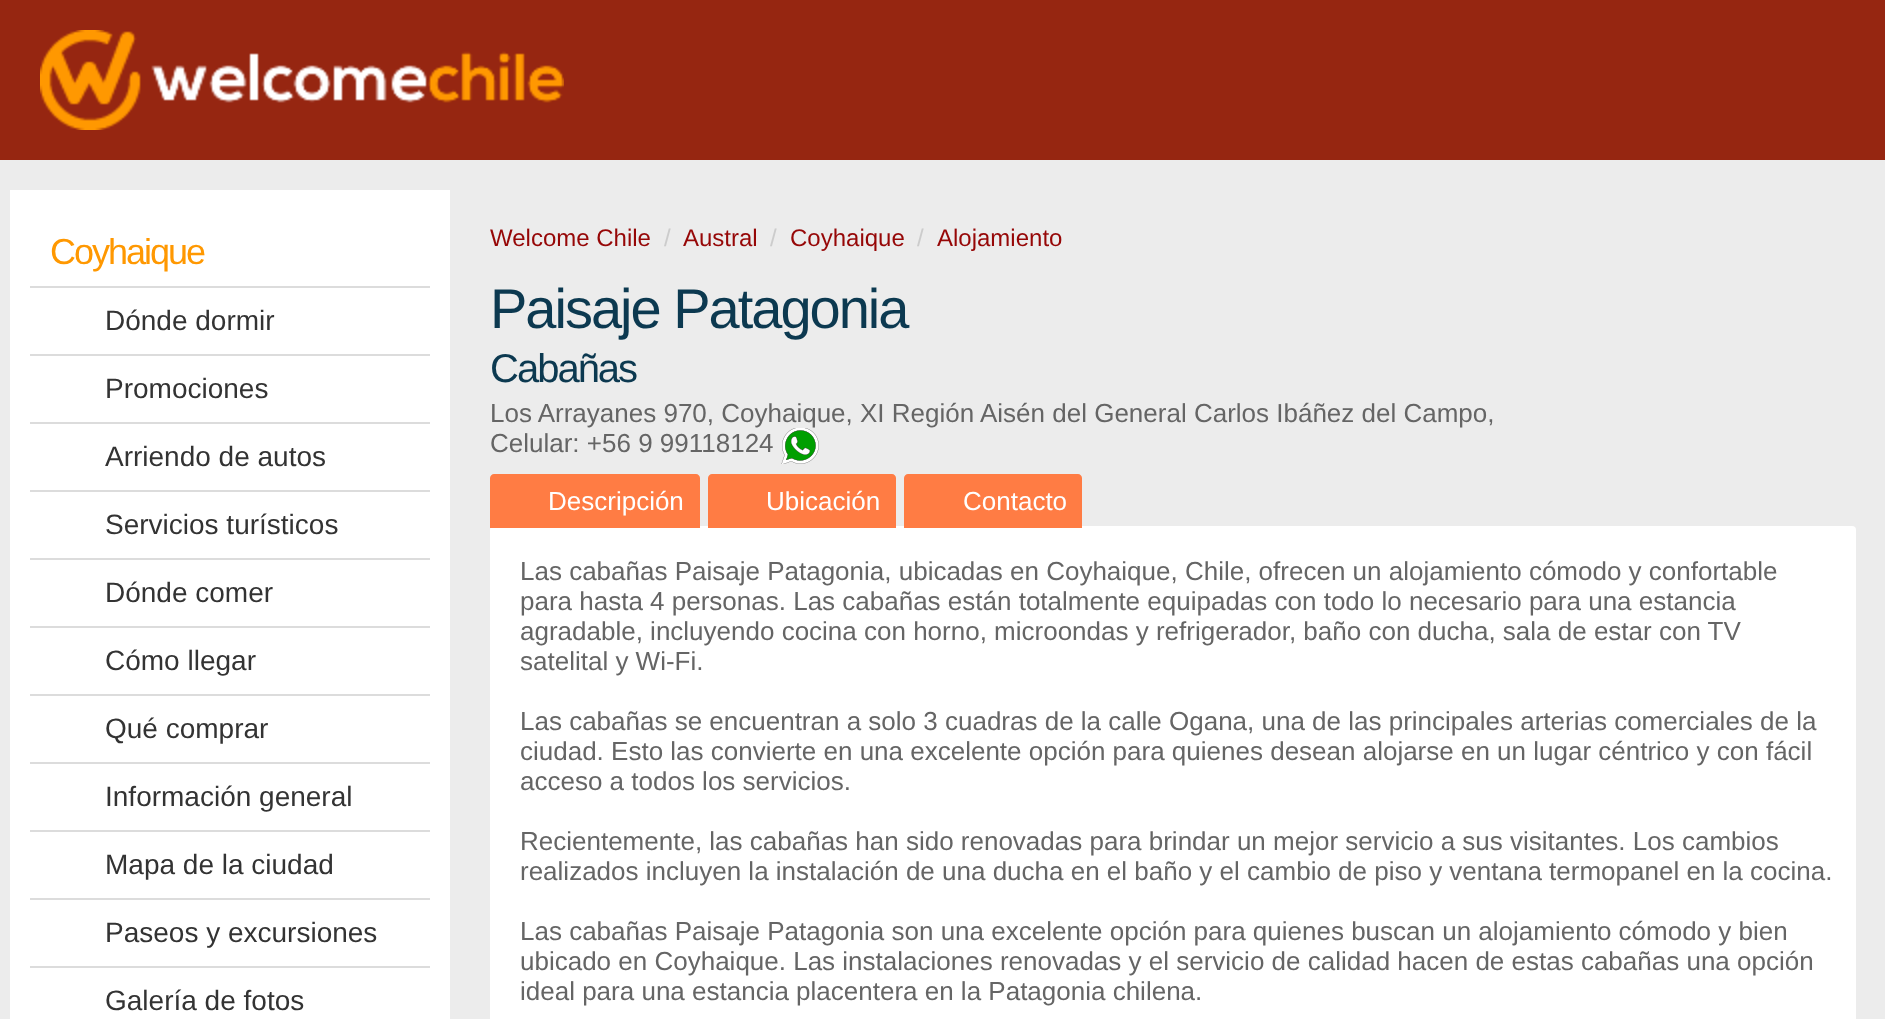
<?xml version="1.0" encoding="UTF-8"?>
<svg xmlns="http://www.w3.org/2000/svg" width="1885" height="1019">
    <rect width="100%" height="100%" fill="#ECECEC"/>
    <rect x="0" y="0" width="1885" height="160" fill="#962611"/>
    <image x="40" y="30" width="524" height="100" href="img_01.png"/>
    <rect x="10" y="190" width="440" height="829" fill="#FFFFFF"/>
    <rect x="30" y="286" width="400" height="2" fill="#DCDCDC"/>
    <text x="50" y="264" font-family="Liberation Sans" font-size="36" letter-spacing="-2" fill="#FF9801">Coyhaique</text>
    <rect x="30" y="354" width="400" height="2" fill="#DCDCDC"/>
    <text x="105" y="330" font-family="Liberation Sans" font-size="28" fill="#333333">Dónde dormir</text>
    <rect x="30" y="422" width="400" height="2" fill="#DCDCDC"/>
    <text x="105" y="398" font-family="Liberation Sans" font-size="28" fill="#333333">Promociones</text>
    <rect x="30" y="490" width="400" height="2" fill="#DCDCDC"/>
    <text x="105" y="466" font-family="Liberation Sans" font-size="28" fill="#333333">Arriendo de autos</text>
    <rect x="30" y="558" width="400" height="2" fill="#DCDCDC"/>
    <text x="105" y="534" font-family="Liberation Sans" font-size="28" fill="#333333">Servicios turísticos</text>
    <rect x="30" y="626" width="400" height="2" fill="#DCDCDC"/>
    <text x="105" y="602" font-family="Liberation Sans" font-size="28" fill="#333333">Dónde comer</text>
    <rect x="30" y="694" width="400" height="2" fill="#DCDCDC"/>
    <text x="105" y="670" font-family="Liberation Sans" font-size="28" fill="#333333">Cómo llegar</text>
    <rect x="30" y="762" width="400" height="2" fill="#DCDCDC"/>
    <text x="105" y="738" font-family="Liberation Sans" font-size="28" fill="#333333">Qué comprar</text>
    <rect x="30" y="830" width="400" height="2" fill="#DCDCDC"/>
    <text x="105" y="806" font-family="Liberation Sans" font-size="28" fill="#333333">Información general</text>
    <rect x="30" y="898" width="400" height="2" fill="#DCDCDC"/>
    <text x="105" y="874" font-family="Liberation Sans" font-size="28" fill="#333333">Mapa de la ciudad</text>
    <rect x="30" y="966" width="400" height="2" fill="#DCDCDC"/>
    <text x="105" y="942" font-family="Liberation Sans" font-size="28" fill="#333333">Paseos y excursiones</text>
    <text x="105" y="1010" font-family="Liberation Sans" font-size="28" fill="#333333">Galería de fotos</text>
    <text x="490" y="246" font-family="Liberation Sans" font-size="24" fill="#960707">Welcome Chile</text>
    <text x="664" y="246" font-family="Liberation Sans" font-size="24" fill="#CCCCCC">/</text>
    <text x="683" y="246" font-family="Liberation Sans" font-size="24" fill="#960707">Austral</text>
    <text x="770" y="246" font-family="Liberation Sans" font-size="24" fill="#CCCCCC">/</text>
    <text x="790" y="246" font-family="Liberation Sans" font-size="24" fill="#960707">Coyhaique</text>
    <text x="917" y="246" font-family="Liberation Sans" font-size="24" fill="#CCCCCC">/</text>
    <text x="937" y="246" font-family="Liberation Sans" font-size="24" fill="#960707">Alojamiento</text>
    <text x="490" y="328" font-family="Liberation Sans" font-size="56" letter-spacing="-2" fill="#0C3950">Paisaje Patagonia</text>
    <text x="490" y="382" font-family="Liberation Sans" font-size="40" letter-spacing="-2" fill="#0C3950">Cabañas</text>
    <text font-family="Liberation Sans" font-size="26" fill="#656565">
        <tspan x="490" y="422">Los Arrayanes 970, Coyhaique, XI Región Aisén del General Carlos Ibáñez del Campo,</tspan>
        <tspan x="490" y="452">Celular: +56 9 99118124</tspan>
    </text>
    <image x="781" y="428" width="38" height="36" href="img_02.png"/>
    <rect x="490" y="526" width="1366" height="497" rx="4" fill="#FFFFFF"/>
    <path d="M 494 474 H 696 C 698 474 700 476 700 478 V 528 H 490 V 478 C 490 476 492 474 494 474 Z" fill="#FF7C44"/>
    <text x="548" y="510" font-family="Liberation Sans" font-size="26" fill="#FFFFFF">Descripción</text>
    <path d="M 712 474 H 892 C 894 474 896 476 896 478 V 528 H 708 V 478 C 708 476 710 474 712 474 Z" fill="#FF7C44"/>
    <text x="766" y="510" font-family="Liberation Sans" font-size="26" fill="#FFFFFF">Ubicación</text>
    <path d="M 908 474 H 1078 C 1080 474 1082 476 1082 478 V 528 H 904 V 478 C 904 476 906 474 908 474 Z" fill="#FF7C44"/>
    <text x="963" y="510" font-family="Liberation Sans" font-size="26" fill="#FFFFFF">Contacto</text>
    <text font-family="Liberation Sans" font-size="26" fill="#656565">
        <tspan x="520" y="580">Las cabañas Paisaje Patagonia, ubicadas en Coyhaique, Chile, ofrecen un alojamiento cómodo y confortable</tspan>
        <tspan x="520" y="610">para hasta 4 personas. Las cabañas están totalmente equipadas con todo lo necesario para una estancia</tspan>
        <tspan x="520" y="640">agradable, incluyendo cocina con horno, microondas y refrigerador, baño con ducha, sala de estar con TV</tspan>
        <tspan x="520" y="670">satelital y Wi-Fi.</tspan>
    </text>
    <text font-family="Liberation Sans" font-size="26" fill="#656565">
        <tspan x="520" y="730">Las cabañas se encuentran a solo 3 cuadras de la calle Ogana, una de las principales arterias comerciales de la</tspan>
        <tspan x="520" y="760">ciudad. Esto las convierte en una excelente opción para quienes desean alojarse en un lugar céntrico y con fácil</tspan>
        <tspan x="520" y="790">acceso a todos los servicios.</tspan>
    </text>
    <text font-family="Liberation Sans" font-size="26" fill="#656565">
        <tspan x="520" y="850">Recientemente, las cabañas han sido renovadas para brindar un mejor servicio a sus visitantes. Los cambios</tspan>
        <tspan x="520" y="880">realizados incluyen la instalación de una ducha en el baño y el cambio de piso y ventana termopanel en la cocina.</tspan>
    </text>
    <text font-family="Liberation Sans" font-size="26" fill="#656565">
        <tspan x="520" y="940">Las cabañas Paisaje Patagonia son una excelente opción para quienes buscan un alojamiento cómodo y bien</tspan>
        <tspan x="520" y="970">ubicado en Coyhaique. Las instalaciones renovadas y el servicio de calidad hacen de estas cabañas una opción</tspan>
        <tspan x="520" y="1000">ideal para una estancia placentera en la Patagonia chilena.</tspan>
    </text>
</svg>
